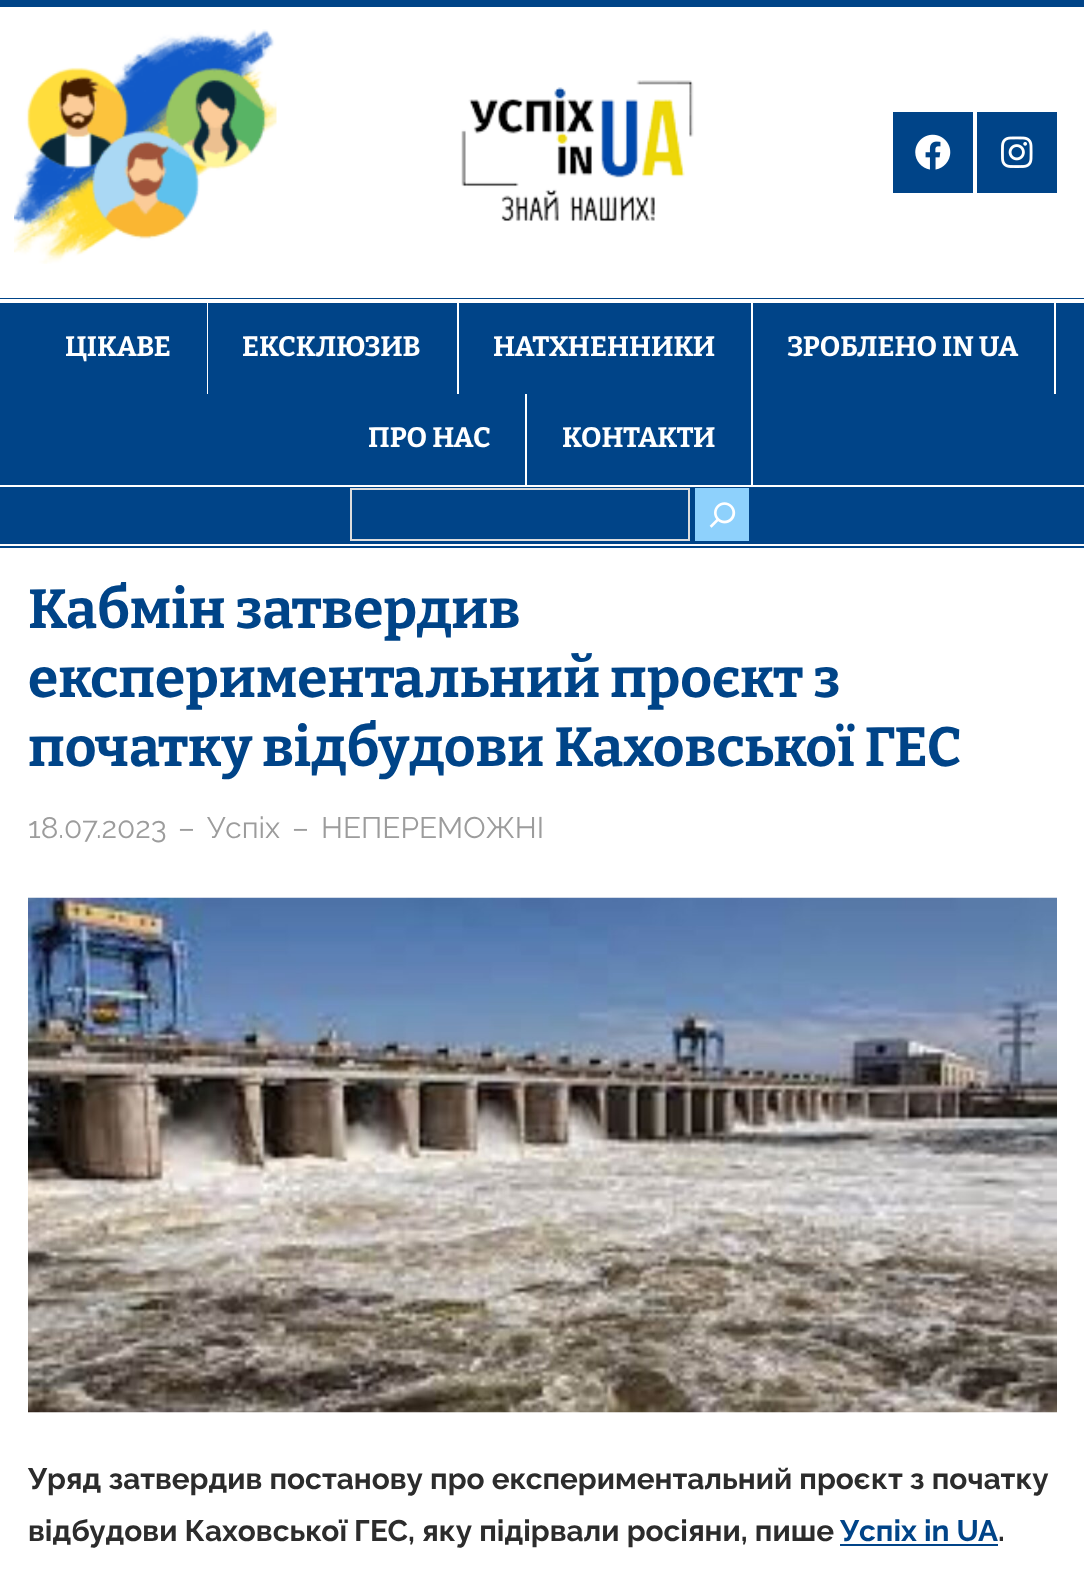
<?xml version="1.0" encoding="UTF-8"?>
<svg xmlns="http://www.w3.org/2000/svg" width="1084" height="1588">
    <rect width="100%" height="100%" fill="#FFFFFF"/>
    <rect x="0" y="0" width="1084" height="7" fill="#004488"/>
    <image x="14" y="29" width="263" height="235" href="img_01.png"/>
    <image x="461" y="80" width="233" height="142" href="img_02.png"/>
    <rect x="893" y="112" width="80" height="81" fill="#004488"/>
    <image x="915" y="134" width="36" height="36" href="img_03.png"/>
    <rect x="977" y="112" width="80" height="81" fill="#004488"/>
    <image x="1001" y="136" width="32" height="32" href="img_04.png"/>
    <rect x="0" y="298" width="1084" height="250" fill="#004488"/>
    <rect x="0" y="299" width="1084" height="4" fill="#FFFFFF"/>
    <rect x="0" y="544" width="1084" height="2" fill="#FFFFFF"/>
    <rect x="0" y="485" width="1084" height="2" fill="#FFFFFF"/>
    <rect x="207" y="303" width="1" height="91" fill="#FFFFFF"/>
    <text x="65" y="356" font-family="Bitter" font-size="28" font-weight="700" fill="#FFFFFF">ЦІКАВЕ</text>
    <rect x="457" y="303" width="2" height="91" fill="#FFFFFF"/>
    <text x="242" y="356" font-family="Bitter" font-size="28" font-weight="700" fill="#FFFFFF">ЕКСКЛЮЗИВ</text>
    <rect x="751" y="303" width="2" height="182" fill="#FFFFFF"/>
    <text x="493" y="356" font-family="Bitter" font-size="28" font-weight="700" fill="#FFFFFF">НАТХНЕННИКИ</text>
    <rect x="1054" y="303" width="2" height="91" fill="#FFFFFF"/>
    <text x="787" y="356" font-family="Bitter" font-size="28" font-weight="700" fill="#FFFFFF">ЗРОБЛЕНО IN UA</text>
    <rect x="525" y="394" width="2" height="91" fill="#FFFFFF"/>
    <text x="368" y="447" font-family="Bitter" font-size="28" font-weight="700" fill="#FFFFFF">ПРО НАС</text>
    <text x="562" y="447" font-family="Bitter" font-size="28" font-weight="700" fill="#FFFFFF">КОНТАКТИ</text>
    <rect x="351" y="489" width="338" height="51" fill="none" stroke="#DDDDDD" stroke-width="2"/>
    <rect x="695" y="488" width="54" height="53" fill="#8ED1FC"/>
    <image x="709" y="502" width="27" height="26" href="img_05.png"/>
    <text font-family="Bitter" font-size="55.1" font-weight="700" fill="#004488">
        <tspan x="28" y="628">Кабмін затвердив</tspan>
        <tspan x="28" y="697">експериментальний проєкт з</tspan>
        <tspan x="28" y="766">початку відбудови Каховської ГЕС</tspan>
    </text>
    <text x="28" y="838" font-family="Raleway" font-size="29.75" fill="#9C9C9C">18.07.2023</text>
    <text x="178" y="838" font-family="Raleway" font-size="29.75" fill="#9C9C9C">–</text>
    <text x="207" y="838" font-family="Raleway" font-size="29.75" fill="#9C9C9C">Успіх</text>
    <text x="292" y="838" font-family="Raleway" font-size="29.75" fill="#9C9C9C">–</text>
    <text x="321" y="838" font-family="Raleway" font-size="29.75" fill="#9C9C9C">НЕПЕРЕМОЖНІ</text>
    <image x="28" y="897" width="1029" height="516" href="img_06.png"/>
    <text font-family="Raleway" font-size="29.75" font-weight="700" fill="#2C2C2C">
        <tspan x="28" y="1489">Уряд затвердив постанову про експериментальний проєкт з початку</tspan>
        <tspan x="28" y="1541">відбудови Каховської ГЕС, яку підірвали росіяни, пише</tspan>
    </text>
    <text x="840" y="1541" font-family="Raleway" font-size="29.75" font-weight="700" fill="#004488">Успіх in UA</text>
    <text x="998" y="1541" font-family="Raleway" font-size="29.75" font-weight="700" fill="#2C2C2C">.</text>
    <rect x="840" y="1544" width="158" height="2" fill="#004488"/>
</svg>
